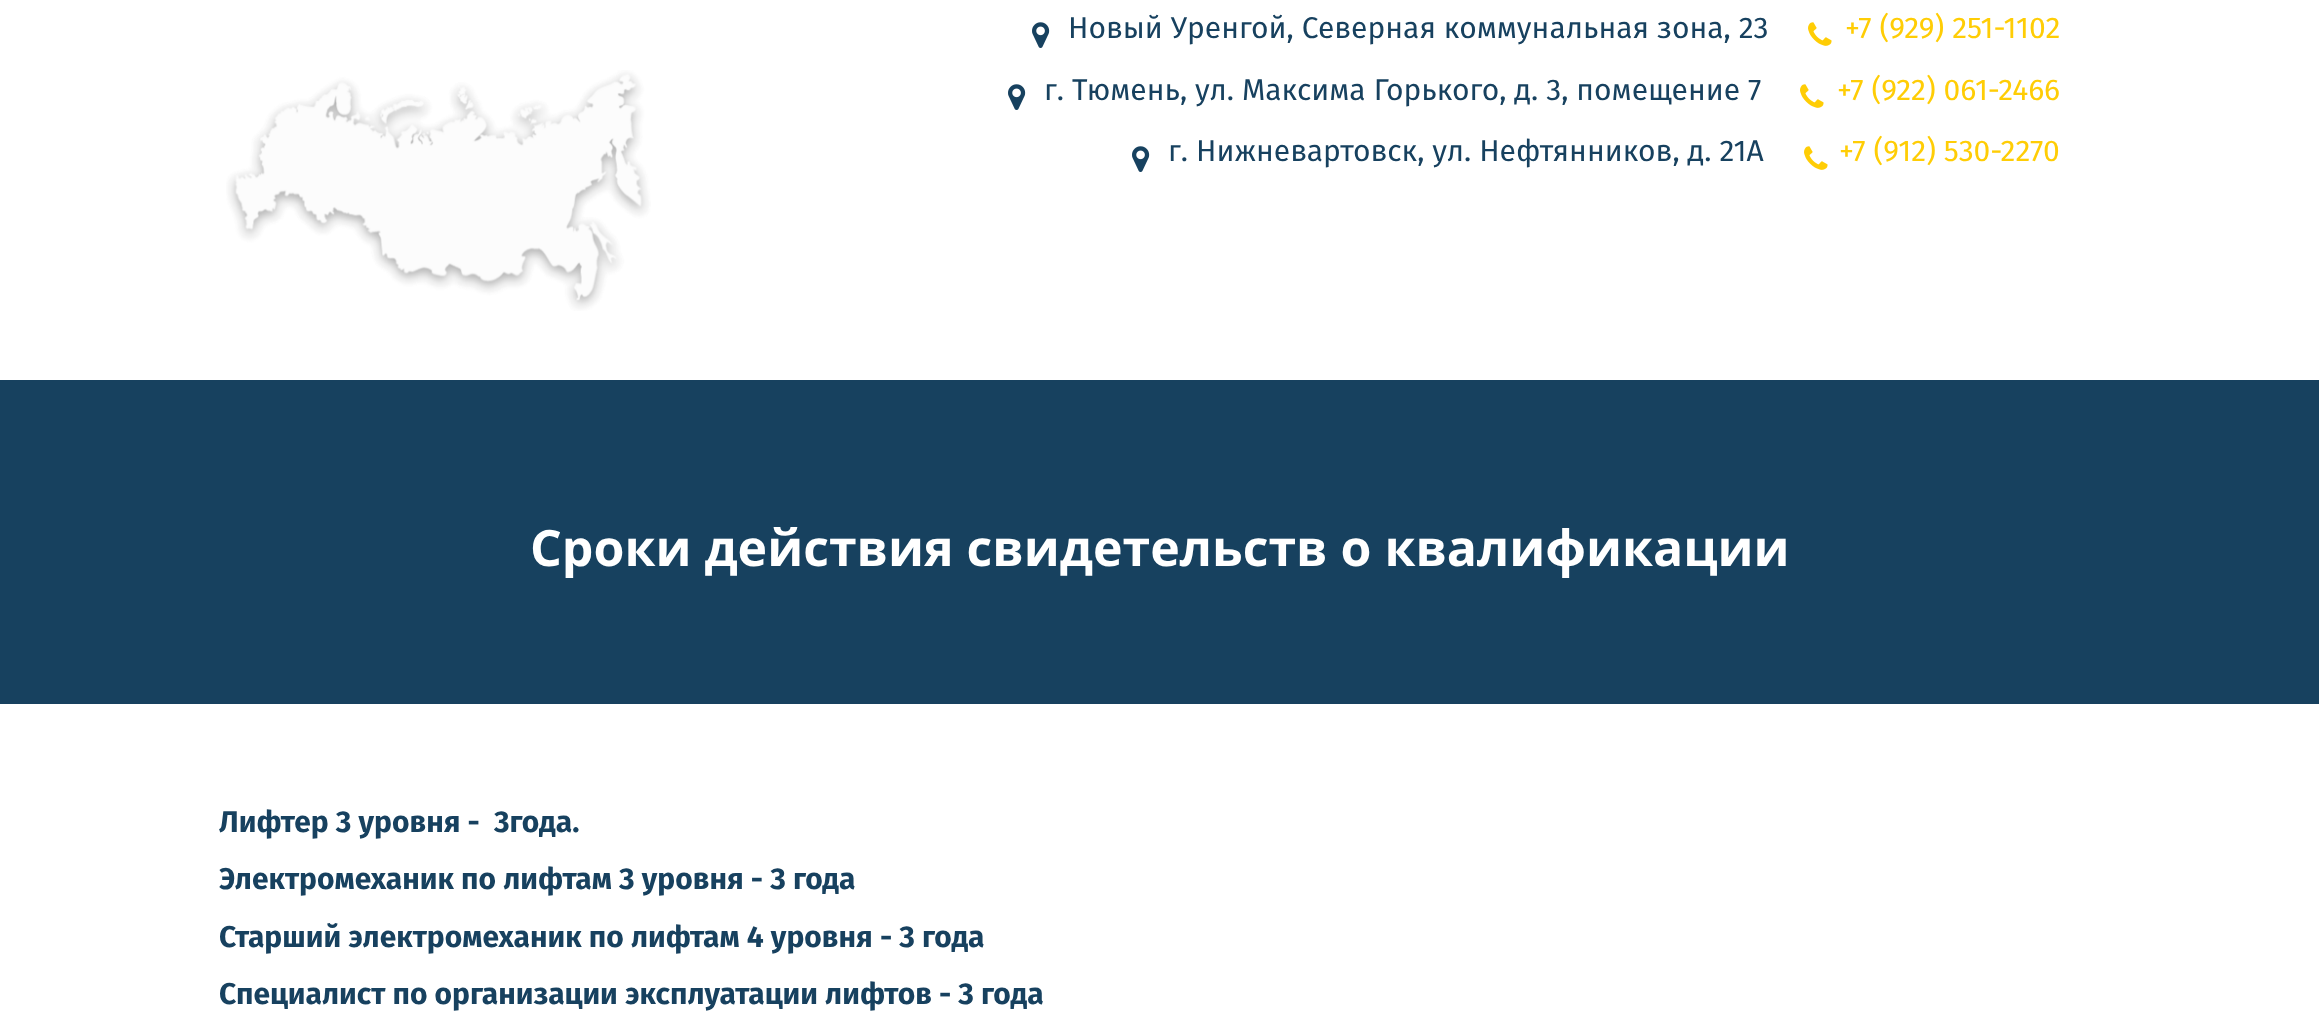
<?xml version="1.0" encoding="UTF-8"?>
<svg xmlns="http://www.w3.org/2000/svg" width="2319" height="1013">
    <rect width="100%" height="100%" fill="#FFFFFF"/>
    <image x="226" y="70" width="425" height="241" href="img_01.png"/>
    <image x="1032" y="22" width="18" height="26" href="img_02.png"/>
    <text x="1068" y="38" font-family="Fira Sans" font-size="30" fill="#17415F">Новый Уренгой, Северная коммунальная зона, 23</text>
    <image x="1808" y="22" width="24" height="24" href="img_03.png"/>
    <text x="1845" y="38" font-family="Fira Sans" font-size="30" fill="#FFCD05">+7 (929) 251-1102</text>
    <image x="1008" y="84" width="18" height="26" href="img_02.png"/>
    <text x="1044" y="100" font-family="Fira Sans" font-size="30" fill="#17415F">г. Тюмень, ул. Максима Горького, д. 3, помещение 7</text>
    <image x="1800" y="84" width="24" height="24" href="img_03.png"/>
    <text x="1837" y="100" font-family="Fira Sans" font-size="30" fill="#FFCD05">+7 (922) 061-2466</text>
    <image x="1132" y="146" width="18" height="26" href="img_02.png"/>
    <text x="1168" y="161" font-family="Fira Sans" font-size="30" fill="#17415F">г. Нижневартовск, ул. Нефтянников, д. 21А</text>
    <image x="1804" y="146" width="24" height="24" href="img_03.png"/>
    <text x="1839" y="161" font-family="Fira Sans" font-size="30" fill="#FFCD05">+7 (912) 530-2270</text>
    <rect x="0" y="380" width="2319" height="324" fill="#17415F"/>
    <text x="530" y="566" font-family="Open Sans" font-size="50" font-weight="700" fill="#FFFFFF">Сроки действия свидетельств о квалификации</text>
    <text font-family="Fira Sans" font-size="30" font-weight="700" fill="#17415F" xml:space="preserve"><tspan x="219" y="832">Лифтер 3 уровня -  3года.</tspan><tspan x="219" y="889">Электромеханик по лифтам 3 уровня - 3 года</tspan><tspan x="219" y="947">Старший электромеханик по лифтам 4 уровня - 3 года</tspan><tspan x="219" y="1004">Специалист по организации эксплуатации лифтов - 3 года</tspan></text>
</svg>
